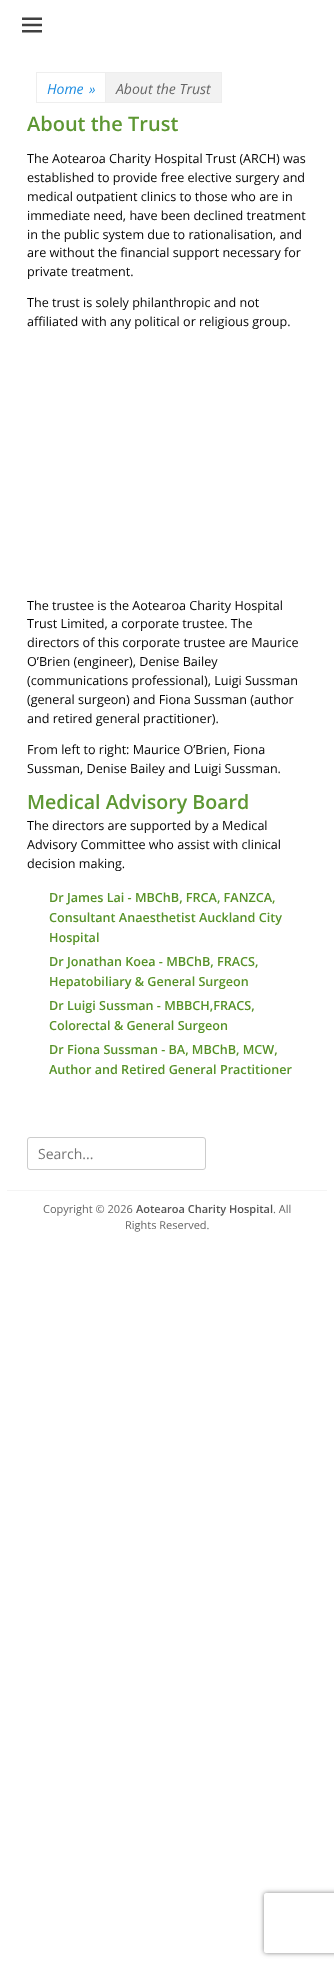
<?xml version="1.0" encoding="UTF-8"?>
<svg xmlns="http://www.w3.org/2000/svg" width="334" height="1967">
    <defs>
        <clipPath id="clip1"><path d="M 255 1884 H 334 V 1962 H 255 Z M 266 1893 H 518 C 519 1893 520 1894 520 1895 V 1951 C 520 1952 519 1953 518 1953 H 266 C 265 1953 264 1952 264 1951 V 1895 C 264 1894 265 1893 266 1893 Z" clip-rule="evenodd"/></clipPath>
        <filter id="blur1" x="-50%" y="-200%" width="200%" height="500%"><feGaussianBlur stdDeviation="2.5"/></filter>
    </defs>
    <rect width="100%" height="100%" fill="#FFFFFF"/>
    <image x="22" y="17" width="20" height="16" href="img_01.png"/>
    <rect x="36.5" y="72.5" width="69" height="30" fill="none" stroke="#EEEEEE"/>
    <text x="47" y="94" font-family="Open Sans" font-size="14" font-style="italic" fill="#1B8BE0">Home</text>
    <text x="89" y="94" font-family="Open Sans" font-size="14" font-style="italic" fill="#1B8BE0">»</text>
    <rect x="105.5" y="72.5" width="116" height="30" fill="#F2F2F2" stroke="#EEEEEE"/>
    <text x="116" y="94" font-family="Open Sans" font-size="14" font-style="italic" fill="#666666">About the Trust</text>
    <text x="27" y="131" font-family="Open Sans" font-size="20" font-weight="600" fill="#5D9733">About the Trust</text>
    <text font-family="Open Sans" font-size="12.6" fill="#020202">
        <tspan x="27" y="163">The Aotearoa Charity Hospital Trust (ARCH) was</tspan>
        <tspan x="27" y="182">established to provide free elective surgery and</tspan>
        <tspan x="27" y="201">medical outpatient clinics to those who are in</tspan>
        <tspan x="27" y="220">immediate need, have been declined treatment</tspan>
        <tspan x="27" y="239">in the public system due to rationalisation, and</tspan>
        <tspan x="27" y="257">are without the financial support necessary for</tspan>
        <tspan x="27" y="276">private treatment.</tspan>
    </text>
    <text font-family="Open Sans" font-size="12.6" fill="#020202">
        <tspan x="27" y="307">The trust is solely philanthropic and not</tspan>
        <tspan x="27" y="326">affiliated with any political or religious group.</tspan>
    </text>
    <text font-family="Open Sans" font-size="12.6" fill="#020202">
        <tspan x="27" y="610">The trustee is the Aotearoa Charity Hospital</tspan>
        <tspan x="27" y="628">Trust Limited, a corporate trustee. The</tspan>
        <tspan x="27" y="647">directors of this corporate trustee are Maurice</tspan>
        <tspan x="27" y="666">O’Brien (engineer), Denise Bailey</tspan>
        <tspan x="27" y="685">(communications professional), Luigi Sussman</tspan>
        <tspan x="27" y="704">(general surgeon) and Fiona Sussman (author</tspan>
        <tspan x="27" y="723">and retired general practitioner).</tspan>
    </text>
    <text font-family="Open Sans" font-size="12.6" fill="#020202">
        <tspan x="27" y="754">From left to right: Maurice O’Brien, Fiona</tspan>
        <tspan x="27" y="773">Sussman, Denise Bailey and Luigi Sussman.</tspan>
    </text>
    <text x="27" y="809" font-family="Open Sans" font-size="19.6" font-weight="600" fill="#5D9733">Medical Advisory Board</text>
    <text font-family="Open Sans" font-size="12.6" fill="#020202">
        <tspan x="27" y="830">The directors are supported by a Medical</tspan>
        <tspan x="27" y="849">Advisory Committee who assist with clinical</tspan>
        <tspan x="27" y="868">decision making.</tspan>
    </text>
    <text font-family="Open Sans" font-size="12.6" font-weight="600" fill="#579228">
        <tspan x="49" y="902">Dr James Lai - MBChB, FRCA, FANZCA,</tspan>
        <tspan x="49" y="922">Consultant Anaesthetist Auckland City</tspan>
        <tspan x="49" y="942">Hospital</tspan>
        <tspan x="49" y="966">Dr Jonathan Koea - MBChB, FRACS,</tspan>
        <tspan x="49" y="986">Hepatobiliary &amp; General Surgeon</tspan>
        <tspan x="49" y="1010">Dr Luigi Sussman - MBBCH,FRACS,</tspan>
        <tspan x="49" y="1030">Colorectal &amp; General Surgeon</tspan>
        <tspan x="49" y="1054">Dr Fiona Sussman - BA, MBChB, MCW,</tspan>
        <tspan x="49" y="1074">Author and Retired General Practitioner</tspan>
    </text>
    <rect x="27.5" y="1137.5" width="178" height="32" rx="2.5" fill="none" stroke="#CCCCCC"/>
    <text x="38" y="1159" font-family="Open Sans" font-size="14" fill="#757575">Search...</text>
    <rect x="7" y="1190" width="320" height="1" fill="#F4F4F4"/>
    <text x="43" y="1213" font-family="Open Sans" font-size="11" fill="#666666">Copyright © 2026</text>
    <text x="136" y="1213" font-family="Open Sans" font-size="11" font-weight="600" fill="#555555">Aotearoa Charity Hospital</text>
    <text x="273" y="1213" font-family="Open Sans" font-size="11" fill="#666666">. All</text>
    <text x="125" y="1229" font-family="Open Sans" font-size="11" fill="#666666">Rights Reserved.</text>
    <g clip-path="url(#clip1)">
        <rect x="264" y="1893" width="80" height="60" rx="2" fill="#808080" filter="url(#blur1)"/>
    </g>
</svg>
